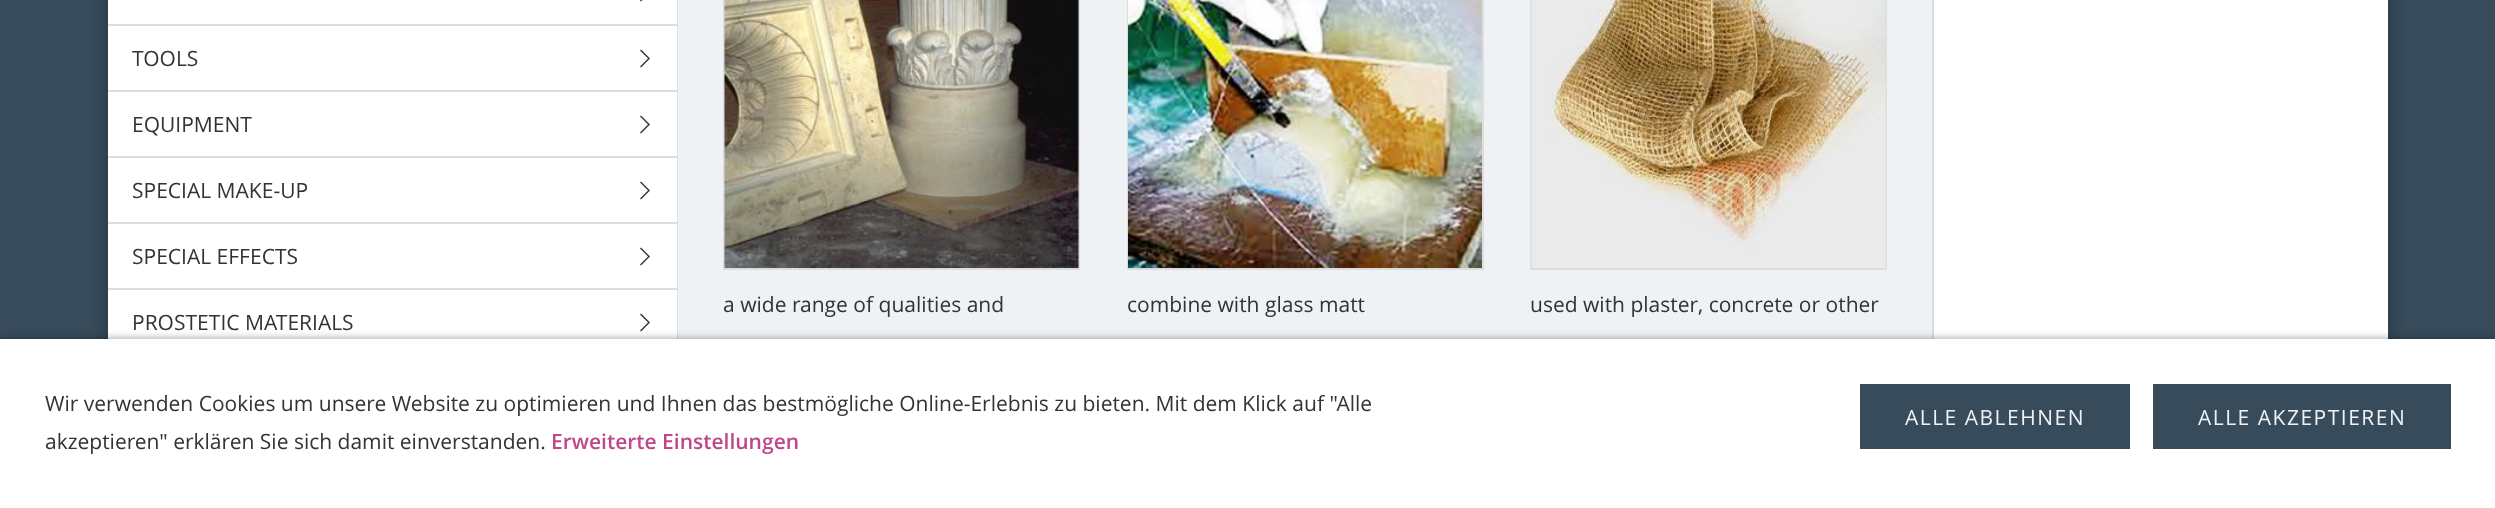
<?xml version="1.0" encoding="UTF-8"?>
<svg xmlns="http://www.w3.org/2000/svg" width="2495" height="508">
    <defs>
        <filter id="blur1" x="-50%" y="-200%" width="200%" height="500%"><feGaussianBlur stdDeviation="11"/></filter>
        <filter id="blur2" x="-50%" y="-200%" width="200%" height="500%"><feGaussianBlur stdDeviation="4"/></filter>
    </defs>
    <rect width="100%" height="100%" fill="#374B5B"/>
    <rect x="108" y="-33" width="2280" height="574" fill="#000000" fill-opacity="0.3" filter="url(#blur1)"/>
    <rect x="108" y="0" width="569" height="339" fill="#FFFFFF"/>
    <rect x="677" y="0" width="1" height="339" fill="#DDDDDD"/>
    <image x="640" y="0" width="3" height="2" href="img_01.png"/>
    <rect x="108" y="24" width="569" height="2" fill="#DDDDDD"/>
    <rect x="108" y="90" width="569" height="2" fill="#DDDDDD"/>
    <text x="132" y="66" font-family="Open Sans" font-size="21" fill="#333333">TOOLS</text>
    <image x="640" y="49" width="10" height="19" href="img_02.png"/>
    <rect x="108" y="156" width="569" height="2" fill="#DDDDDD"/>
    <text x="132" y="132" font-family="Open Sans" font-size="21" fill="#333333">EQUIPMENT</text>
    <image x="640" y="115" width="10" height="19" href="img_02.png"/>
    <rect x="108" y="222" width="569" height="2" fill="#DDDDDD"/>
    <text x="132" y="198" font-family="Open Sans" font-size="21" fill="#333333">SPECIAL MAKE-UP</text>
    <image x="640" y="181" width="10" height="19" href="img_02.png"/>
    <rect x="108" y="288" width="569" height="2" fill="#DDDDDD"/>
    <text x="132" y="264" font-family="Open Sans" font-size="21" fill="#333333">SPECIAL EFFECTS</text>
    <image x="640" y="247" width="10" height="19" href="img_02.png"/>
    <text x="132" y="330" font-family="Open Sans" font-size="21" fill="#333333">PROSTETIC MATERIALS</text>
    <image x="640" y="313" width="10" height="19" href="img_02.png"/>
    <rect x="678" y="0" width="1254" height="339" fill="#EFF2F4"/>
    <rect x="724" y="-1" width="355" height="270" fill="none" stroke="#DDDDDD" stroke-width="2"/>
    <image x="724" y="0" width="355" height="268" href="img_03.png"/>
    <text x="723" y="312" font-family="Open Sans" font-size="21" fill="#333333">a wide range of qualities and</text>
    <rect x="1128" y="-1" width="355" height="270" fill="none" stroke="#DDDDDD" stroke-width="2"/>
    <image x="1128" y="0" width="354" height="268" href="img_04.png"/>
    <text x="1127" y="312" font-family="Open Sans" font-size="21" fill="#333333">combine with glass matt</text>
    <rect x="1531" y="-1" width="355" height="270" fill="none" stroke="#DDDDDD" stroke-width="2"/>
    <image x="1531" y="0" width="355" height="268" href="img_05.png"/>
    <text x="1530" y="312" font-family="Open Sans" font-size="21" fill="#333333">used with plaster, concrete or other</text>
    <rect x="1934" y="0" width="454" height="339" fill="#FFFFFF"/>
    <rect x="1932" y="0" width="2" height="339" fill="#DDDDDD"/>
    <rect x="0" y="339" width="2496" height="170" fill="#000000" fill-opacity="0.4" filter="url(#blur2)"/>
    <rect x="0" y="339" width="2495" height="169" fill="#FFFFFF"/>
    <text font-family="Open Sans" font-size="21" fill="#333333">
        <tspan x="45" y="411">Wir verwenden Cookies um unsere Website zu optimieren und Ihnen das bestmögliche Online-Erlebnis zu bieten. Mit dem Klick auf "Alle</tspan>
        <tspan x="45" y="449">akzeptieren" erklären Sie sich damit einverstanden.</tspan>
    </text>
    <text x="551" y="449" font-family="Open Sans" font-size="21" font-weight="600" fill="#BF4688">Erweiterte Einstellungen</text>
    <rect x="1860" y="384" width="270" height="65" fill="#374B5B"/>
    <text x="1905" y="425" font-family="Open Sans" font-size="21" letter-spacing="1.5" fill="#EFF2F4">ALLE ABLEHNEN</text>
    <rect x="2153" y="384" width="298" height="65" fill="#374B5B"/>
    <text x="2198" y="425" font-family="Open Sans" font-size="21" letter-spacing="1.5" fill="#EFF2F4">ALLE AKZEPTIEREN</text>
</svg>
